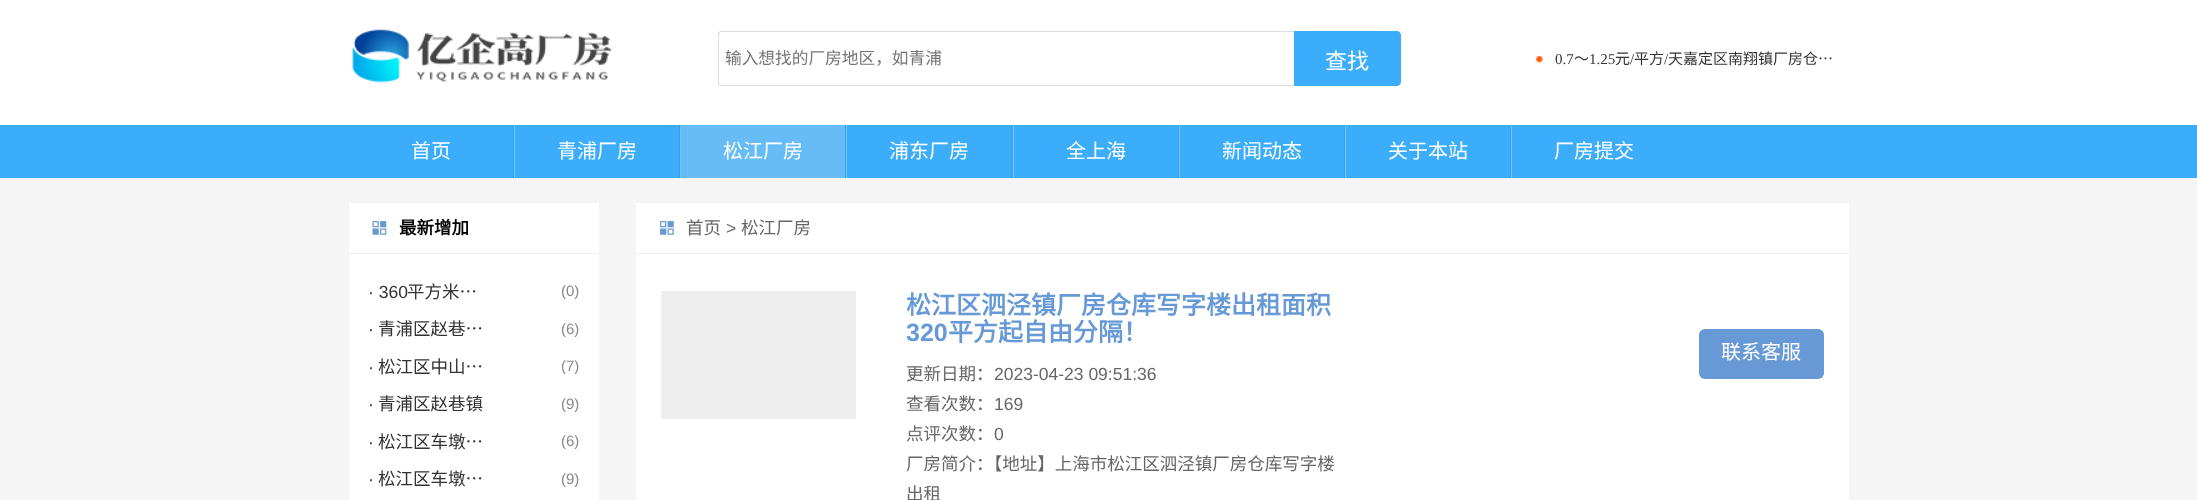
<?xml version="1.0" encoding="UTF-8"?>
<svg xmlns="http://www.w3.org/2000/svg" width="2197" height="500">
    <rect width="100%" height="100%" fill="#F5F5F5"/>
    <rect x="0" y="0" width="2197" height="125" fill="#FFFFFF"/>
    <image x="352" y="29" width="260" height="54" href="img_01.png"/>
    <path d="M 721 31 H 1294 V 86 H 721 C 719 86 718 85 718 82 V 35 C 718 33 719 31 721 31 Z M 721 32 H 1294 V 85 H 721 C 720 85 719 84 719 82 V 35 C 719 34 720 32 721 32 Z" fill="#DDDDDD" fill-rule="evenodd"/>
    <text x="725" y="64" font-family="Noto Sans CJK SC" font-size="16.7" fill="#757575">输入想找的厂房地区，如青浦</text>
    <path d="M 1294 31 H 1397 C 1399 31 1401 33 1401 35 V 82 C 1401 84 1399 86 1397 86 H 1294 Z" fill="#3CADFB"/>
    <text x="1325" y="69" font-family="Noto Sans CJK SC" font-size="22" fill="#FFFFFF">查找</text>
    <image x="1536" y="55" width="7" height="8" href="img_02.png"/>
    <text x="1555" y="64" font-family="Liberation Serif" font-size="15" fill="#333333">0.7</text>
    <text x="1574" y="64" font-family="Noto Sans CJK SC" font-size="15" fill="#333333">～</text>
    <text x="1589" y="64" font-family="Liberation Serif" font-size="15" fill="#333333">1.25</text>
    <text x="1615" y="64" font-family="Noto Sans CJK SC" font-size="15" fill="#333333">元</text>
    <text x="1630" y="64" font-family="Liberation Serif" font-size="15" fill="#333333">/</text>
    <text x="1634" y="64" font-family="Noto Sans CJK SC" font-size="15" fill="#333333">平方</text>
    <text x="1664" y="64" font-family="Liberation Serif" font-size="15" fill="#333333">/</text>
    <text x="1668" y="64" font-family="Noto Sans CJK SC" font-size="15" fill="#333333">天嘉定区南翔镇厂房仓…</text>
    <rect x="0" y="125" width="2197" height="53" fill="#3CADFB"/>
    <rect x="513" y="125" width="1" height="53" fill="#32A2F0"/>
    <text x="411" y="158" font-family="Noto Sans CJK SC" font-size="20" fill="#FFFFFF">首页</text>
    <rect x="679" y="125" width="1" height="53" fill="#32A2F0"/>
    <rect x="514" y="125" width="1" height="53" fill="#74C5FD"/>
    <text x="557" y="158" font-family="Noto Sans CJK SC" font-size="20" fill="#FFFFFF">青浦厂房</text>
    <rect x="845" y="125" width="1" height="53" fill="#32A2F0"/>
    <rect x="680" y="125" width="1" height="53" fill="#74C5FD"/>
    <rect x="681" y="125" width="164" height="53" fill="#67BCF7"/>
    <text x="723" y="158" font-family="Noto Sans CJK SC" font-size="20" fill="#FFFFFF">松江厂房</text>
    <rect x="1011" y="125" width="1" height="53" fill="#32A2F0"/>
    <rect x="846" y="125" width="1" height="53" fill="#74C5FD"/>
    <text x="889" y="158" font-family="Noto Sans CJK SC" font-size="20" fill="#FFFFFF">浦东厂房</text>
    <rect x="1178" y="125" width="1" height="53" fill="#32A2F0"/>
    <rect x="1013" y="125" width="1" height="53" fill="#74C5FD"/>
    <text x="1066" y="158" font-family="Noto Sans CJK SC" font-size="20" fill="#FFFFFF">全上海</text>
    <rect x="1344" y="125" width="1" height="53" fill="#32A2F0"/>
    <rect x="1179" y="125" width="1" height="53" fill="#74C5FD"/>
    <text x="1222" y="158" font-family="Noto Sans CJK SC" font-size="20" fill="#FFFFFF">新闻动态</text>
    <rect x="1510" y="125" width="1" height="53" fill="#32A2F0"/>
    <rect x="1345" y="125" width="1" height="53" fill="#74C5FD"/>
    <text x="1388" y="158" font-family="Noto Sans CJK SC" font-size="20" fill="#FFFFFF">关于本站</text>
    <rect x="1511" y="125" width="1" height="53" fill="#74C5FD"/>
    <text x="1554" y="158" font-family="Noto Sans CJK SC" font-size="20" fill="#FFFFFF">厂房提交</text>
    <rect x="349" y="203" width="250" height="297" fill="#FFFFFF"/>
    <image x="372" y="220" width="15" height="15" href="img_03.png"/>
    <rect x="349" y="253" width="250" height="1" fill="#EEEEEE"/>
    <text x="399" y="234" font-family="Noto Sans CJK SC" font-size="17.5" font-weight="700" fill="#000000">最新增加</text>
    <text x="368" y="298" font-family="Liberation Sans" font-size="17.5" fill="#333333">· 360</text>
    <text x="407" y="298" font-family="Noto Sans CJK SC" font-size="17.5" fill="#333333">平方米…</text>
    <text x="561" y="296" font-family="Liberation Sans" font-size="15" fill="#888888">(0)</text>
    <text x="368" y="335" font-family="Liberation Sans" font-size="17.5" fill="#333333">·</text>
    <text x="378" y="335" font-family="Noto Sans CJK SC" font-size="17.5" fill="#333333">青浦区赵巷…</text>
    <text x="561" y="334" font-family="Liberation Sans" font-size="15" fill="#888888">(6)</text>
    <text x="368" y="373" font-family="Liberation Sans" font-size="17.5" fill="#333333">·</text>
    <text x="378" y="373" font-family="Noto Sans CJK SC" font-size="17.5" fill="#333333">松江区中山…</text>
    <text x="561" y="371" font-family="Liberation Sans" font-size="15" fill="#888888">(7)</text>
    <text x="368" y="410" font-family="Liberation Sans" font-size="17.5" fill="#333333">·</text>
    <text x="378" y="410" font-family="Noto Sans CJK SC" font-size="17.5" fill="#333333">青浦区赵巷镇</text>
    <text x="561" y="409" font-family="Liberation Sans" font-size="15" fill="#888888">(9)</text>
    <text x="368" y="448" font-family="Liberation Sans" font-size="17.5" fill="#333333">·</text>
    <text x="378" y="448" font-family="Noto Sans CJK SC" font-size="17.5" fill="#333333">松江区车墩…</text>
    <text x="561" y="446" font-family="Liberation Sans" font-size="15" fill="#888888">(6)</text>
    <text x="368" y="485" font-family="Liberation Sans" font-size="17.5" fill="#333333">·</text>
    <text x="378" y="485" font-family="Noto Sans CJK SC" font-size="17.5" fill="#333333">松江区车墩…</text>
    <text x="561" y="484" font-family="Liberation Sans" font-size="15" fill="#888888">(9)</text>
    <rect x="636" y="203" width="1213" height="297" fill="#FFFFFF"/>
    <image x="659" y="220" width="15" height="15" href="img_04.png"/>
    <rect x="636" y="253" width="1213" height="1" fill="#EEEEEE"/>
    <text x="686" y="234" font-family="Noto Sans CJK SC" font-size="17.5" fill="#666666">首页</text>
    <text x="726" y="234" font-family="Liberation Sans" font-size="17.5" fill="#666666">&gt;</text>
    <text x="741" y="234" font-family="Noto Sans CJK SC" font-size="17.5" fill="#666666">松江厂房</text>
    <rect x="661" y="291" width="195" height="128" fill="#EEEEEE"/>
    <text x="906" y="314" font-family="Noto Sans CJK SC" font-size="25" font-weight="700" fill="#6699D5">松江区泗泾镇厂房仓库写字楼出租面积</text>
    <text x="906" y="341" font-family="Liberation Sans" font-size="25" font-weight="700" fill="#6699D5">320</text>
    <text x="948" y="341" font-family="Noto Sans CJK SC" font-size="25" font-weight="700" fill="#6699D5">平方起自由分隔！</text>
    <text x="906" y="380" font-family="Noto Sans CJK SC" font-size="17.5" fill="#666666">更新日期：</text>
    <text x="994" y="380" font-family="Liberation Sans" font-size="17.5" fill="#666666">2023-04-23 09:51:36</text>
    <text x="906" y="410" font-family="Noto Sans CJK SC" font-size="17.5" fill="#666666">查看次数：</text>
    <text x="994" y="410" font-family="Liberation Sans" font-size="17.5" fill="#666666">169</text>
    <text x="906" y="440" font-family="Noto Sans CJK SC" font-size="17.5" fill="#666666">点评次数：</text>
    <text x="994" y="440" font-family="Liberation Sans" font-size="17.5" fill="#666666">0</text>
    <text font-family="Noto Sans CJK SC" font-size="17.5" fill="#666666">
        <tspan x="906" y="470">厂房简介：【地址】上海市松江区泗泾镇厂房仓库写字楼</tspan>
        <tspan x="906" y="500">出租</tspan>
    </text>
    <rect x="1699" y="329" width="125" height="50" rx="6" fill="#6699D5"/>
    <text x="1721" y="359" font-family="Noto Sans CJK SC" font-size="20" fill="#FFFFFF">联系客服</text>
</svg>
